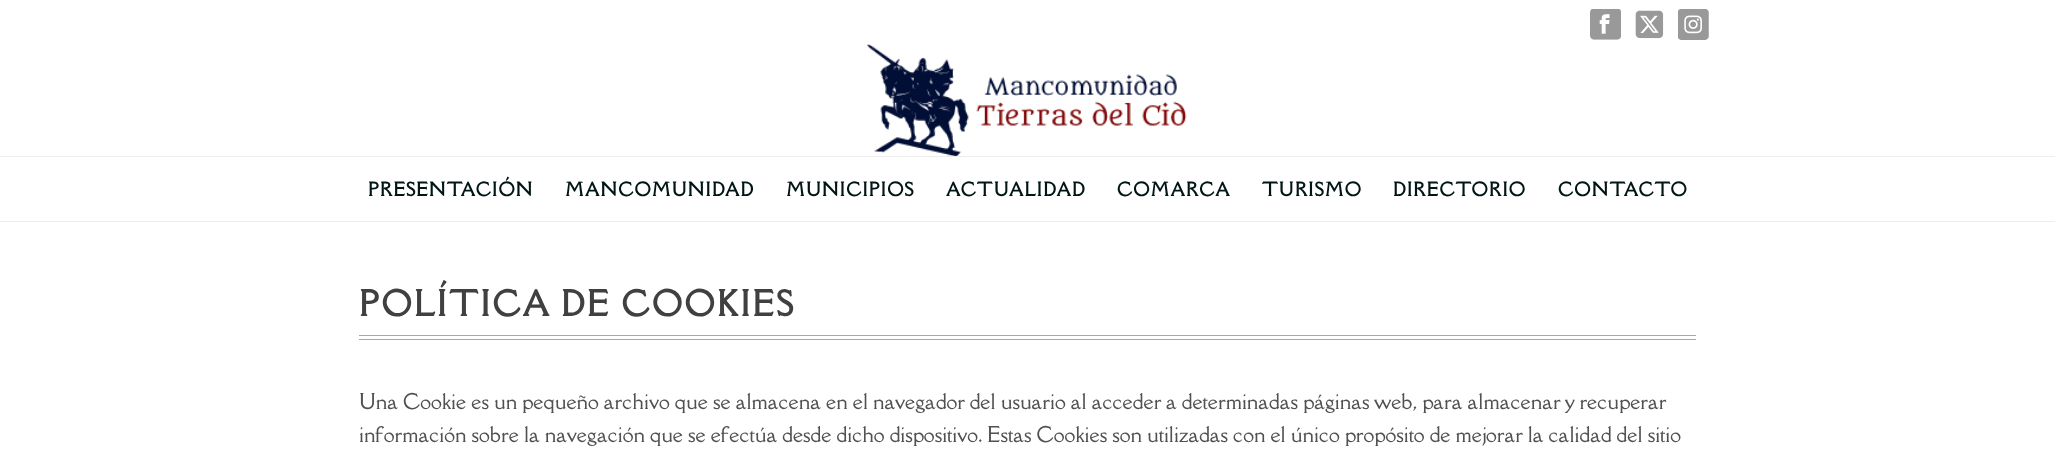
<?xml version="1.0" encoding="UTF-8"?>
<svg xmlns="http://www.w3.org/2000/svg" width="2055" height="470">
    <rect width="100%" height="100%" fill="#FFFFFF"/>
    <image x="1590" y="9" width="31" height="31" href="img_01.png"/>
    <image x="1635" y="10" width="29" height="29" href="img_02.png"/>
    <image x="1678" y="9" width="31" height="31" href="img_03.png"/>
    <rect x="0" y="221" width="2055" height="1" fill="#EDEDED"/>
    <image x="867" y="44" width="320" height="112" href="img_04.png"/>
    <rect x="0" y="156" width="2055" height="1" fill="#EDEDED"/>
    <text x="368" y="196" font-family="Della Respira" font-size="17.5" font-weight="700" letter-spacing="1.25" fill="#001514">PRESENTACIÓN</text>
    <text x="565" y="196" font-family="Della Respira" font-size="17.5" font-weight="700" letter-spacing="1.25" fill="#001514">MANCOMUNIDAD</text>
    <text x="786" y="196" font-family="Della Respira" font-size="17.5" font-weight="700" letter-spacing="1.25" fill="#001514">MUNICIPIOS</text>
    <text x="946" y="196" font-family="Della Respira" font-size="17.5" font-weight="700" letter-spacing="1.25" fill="#001514">ACTUALIDAD</text>
    <text x="1117" y="196" font-family="Della Respira" font-size="17.5" font-weight="700" letter-spacing="1.25" fill="#001514">COMARCA</text>
    <text x="1262" y="196" font-family="Della Respira" font-size="17.5" font-weight="700" letter-spacing="1.25" fill="#001514">TURISMO</text>
    <text x="1393" y="196" font-family="Della Respira" font-size="17.5" font-weight="700" letter-spacing="1.25" fill="#001514">DIRECTORIO</text>
    <text x="1558" y="196" font-family="Della Respira" font-size="17.5" font-weight="700" letter-spacing="1.25" fill="#001514">CONTACTO</text>
    <text x="359" y="316" font-family="Della Respira" font-size="32.5" font-weight="700" letter-spacing="2.5" fill="#404040">POLÍTICA DE COOKIES</text>
    <rect x="359" y="335" width="1337" height="1" fill="#E99D2A"/>
    <rect x="359" y="339" width="1337" height="1" fill="#E99D2A"/>
    <text font-family="Della Respira" font-size="20" fill="#515151">
        <tspan x="359" y="409">Una Cookie es un pequeño archivo que se almacena en el navegador del usuario al acceder a determinadas páginas web, para almacenar y recuperar</tspan>
        <tspan x="359" y="442">información sobre la navegación que se efectúa desde dicho dispositivo. Estas Cookies son utilizadas con el único propósito de mejorar la calidad del sitio</tspan>
    </text>
</svg>
